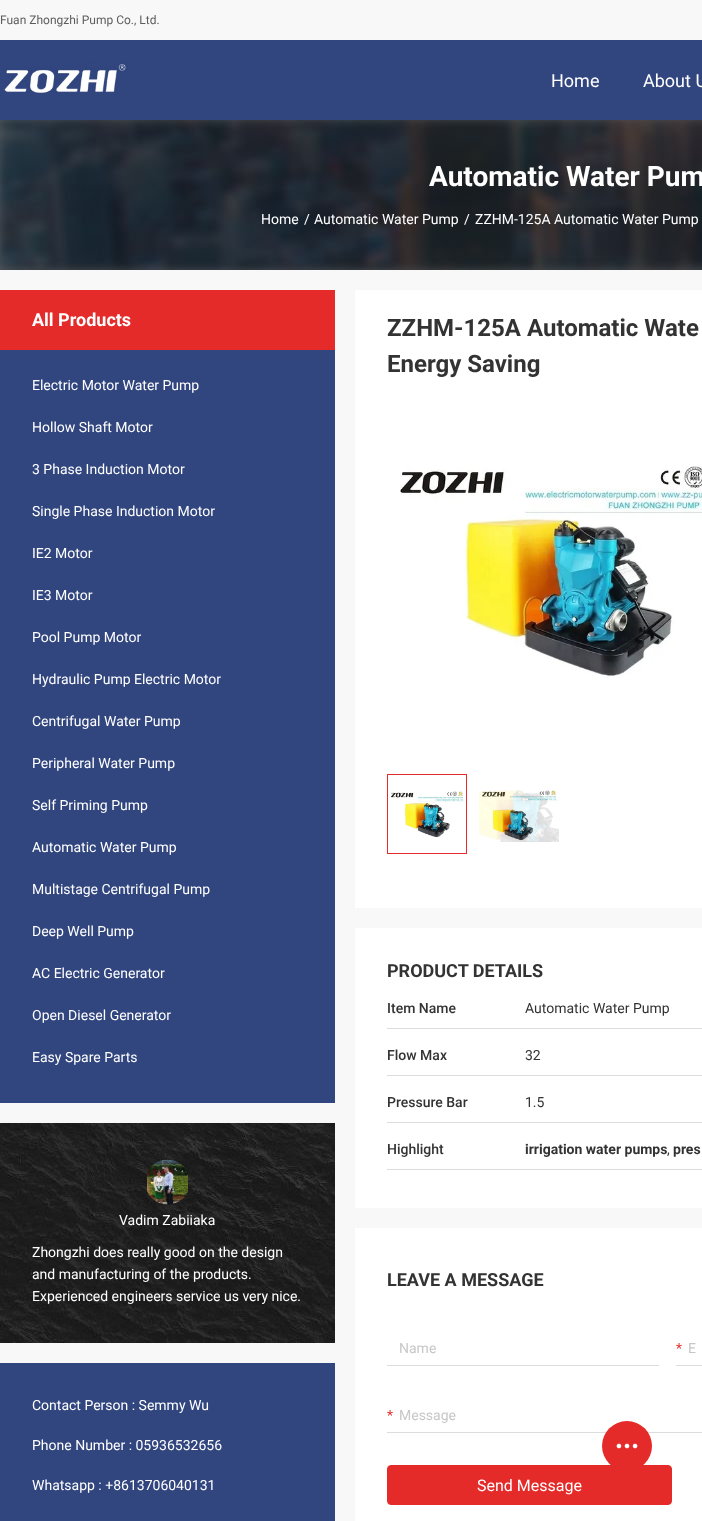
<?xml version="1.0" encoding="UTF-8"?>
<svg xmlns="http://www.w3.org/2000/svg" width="702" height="1521">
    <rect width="100%" height="100%" fill="#F8F8F8"/>
    <text x="0" y="24" font-family="Roboto" font-size="12" fill="#5D5D5D">Fuan Zhongzhi Pump Co., Ltd.</text>
    <rect x="0" y="40" width="702" height="80" fill="#31457E"/>
    <image x="4" y="62" width="125" height="31" href="img_01.png"/>
    <text x="551" y="87" font-family="Roboto" font-size="18" fill="#FFFFFF">Home</text>
    <text x="643" y="87" font-family="Roboto" font-size="18" fill="#FFFFFF">About U</text>
    <image x="0" y="120" width="702" height="150" href="img_02.png"/>
    <text x="429" y="186" font-family="Roboto" font-size="28" font-weight="700" fill="#FFFFFF">Automatic Water Pum</text>
    <text x="261" y="224" font-family="Roboto" font-size="14" fill="#FFFFFF">Home</text>
    <text x="304" y="224" font-family="Roboto" font-size="14" fill="#FFFFFF">/</text>
    <text x="314" y="224" font-family="Roboto" font-size="14" fill="#FFFFFF">Automatic Water Pump</text>
    <text x="464" y="224" font-family="Roboto" font-size="14" fill="#FFFFFF">/</text>
    <text x="475" y="224" font-family="Roboto" font-size="14" fill="#FFFFFF">ZZHM-125A Automatic Water Pump</text>
    <rect x="0" y="290" width="335" height="60" fill="#E52A2A"/>
    <text x="32" y="326" font-family="Roboto" font-size="18" font-weight="700" fill="#FFFFFF">All Products</text>
    <rect x="0" y="350" width="335" height="753" fill="#31457E"/>
    <text x="32" y="390" font-family="Roboto" font-size="14" fill="#FFFFFF">Electric Motor Water Pump</text>
    <text x="32" y="432" font-family="Roboto" font-size="14" fill="#FFFFFF">Hollow Shaft Motor</text>
    <text x="32" y="474" font-family="Roboto" font-size="14" fill="#FFFFFF">3 Phase Induction Motor</text>
    <text x="32" y="516" font-family="Roboto" font-size="14" fill="#FFFFFF">Single Phase Induction Motor</text>
    <text x="32" y="558" font-family="Roboto" font-size="14" fill="#FFFFFF">IE2 Motor</text>
    <text x="32" y="600" font-family="Roboto" font-size="14" fill="#FFFFFF">IE3 Motor</text>
    <text x="32" y="642" font-family="Roboto" font-size="14" fill="#FFFFFF">Pool Pump Motor</text>
    <text x="32" y="684" font-family="Roboto" font-size="14" fill="#FFFFFF">Hydraulic Pump Electric Motor</text>
    <text x="32" y="726" font-family="Roboto" font-size="14" fill="#FFFFFF">Centrifugal Water Pump</text>
    <text x="32" y="768" font-family="Roboto" font-size="14" fill="#FFFFFF">Peripheral Water Pump</text>
    <text x="32" y="810" font-family="Roboto" font-size="14" fill="#FFFFFF">Self Priming Pump</text>
    <text x="32" y="852" font-family="Roboto" font-size="14" fill="#FFFFFF">Automatic Water Pump</text>
    <text x="32" y="894" font-family="Roboto" font-size="14" fill="#FFFFFF">Multistage Centrifugal Pump</text>
    <text x="32" y="936" font-family="Roboto" font-size="14" fill="#FFFFFF">Deep Well Pump</text>
    <text x="32" y="978" font-family="Roboto" font-size="14" fill="#FFFFFF">AC Electric Generator</text>
    <text x="32" y="1020" font-family="Roboto" font-size="14" fill="#FFFFFF">Open Diesel Generator</text>
    <text x="32" y="1062" font-family="Roboto" font-size="14" fill="#FFFFFF">Easy Spare Parts</text>
    <image x="0" y="1123" width="335" height="220" href="img_03.png"/>
    <image x="147" y="1159" width="41" height="46" href="img_04.png"/>
    <text x="119" y="1225" font-family="Roboto" font-size="14" fill="#FFFFFF">Vadim Zabiiaka</text>
    <text font-family="Roboto" font-size="14" fill="#FFFFFF">
        <tspan x="32" y="1257">Zhongzhi does really good on the design</tspan>
        <tspan x="32" y="1279">and manufacturing of the products.</tspan>
        <tspan x="32" y="1301">Experienced engineers service us very nice.</tspan>
    </text>
    <rect x="0" y="1363" width="335" height="158" fill="#31457E"/>
    <text x="32" y="1410" font-family="Roboto" font-size="14" fill="#FFFFFF">Contact Person : Semmy Wu</text>
    <text x="32" y="1450" font-family="Roboto" font-size="14" fill="#FFFFFF">Phone Number : 05936532656</text>
    <text x="32" y="1490" font-family="Roboto" font-size="14" fill="#FFFFFF">Whatsapp : +8613706040131</text>
    <rect x="355" y="290" width="347" height="618" fill="#FFFFFF"/>
    <text font-family="Roboto" font-size="24" font-weight="700" fill="#333333">
        <tspan x="387" y="336">ZZHM-125A Automatic Wate</tspan>
        <tspan x="387" y="372">Energy Saving</tspan>
    </text>
    <image x="400" y="466" width="302" height="212" href="img_05.png"/>
    <rect x="387.5" y="774.5" width="79" height="79" fill="none" stroke="#E52A2A"/>
    <image x="391" y="791" width="74" height="47" href="img_06.png"/>
    <image x="479" y="790" width="80" height="52" href="img_07.png"/>
    <rect x="355" y="928" width="347" height="280" fill="#FFFFFF"/>
    <text x="387" y="977" font-family="Roboto" font-size="18" font-weight="700" fill="#333333">PRODUCT DETAILS</text>
    <text x="387" y="1013" font-family="Roboto" font-size="14" font-weight="500" fill="#333333">Item Name</text>
    <rect x="387" y="1028" width="315" height="1" fill="#DCDCDC"/>
    <text x="525" y="1013" font-family="Roboto" font-size="14" fill="#333333">Automatic Water Pump</text>
    <text x="387" y="1060" font-family="Roboto" font-size="14" font-weight="500" fill="#333333">Flow Max</text>
    <rect x="387" y="1075" width="315" height="1" fill="#DCDCDC"/>
    <text x="525" y="1060" font-family="Roboto" font-size="14" fill="#333333">32</text>
    <text x="387" y="1107" font-family="Roboto" font-size="14" font-weight="500" fill="#333333">Pressure Bar</text>
    <rect x="387" y="1122" width="315" height="1" fill="#DCDCDC"/>
    <text x="525" y="1107" font-family="Roboto" font-size="14" fill="#333333">1.5</text>
    <text x="387" y="1154" font-family="Roboto" font-size="14" font-weight="500" fill="#333333">Highlight</text>
    <rect x="387" y="1169" width="315" height="1" fill="#DCDCDC"/>
    <text x="525" y="1154" font-family="Roboto" font-size="14" font-weight="700" fill="#333333">irrigation water pumps</text>
    <text x="667" y="1154" font-family="Roboto" font-size="14" fill="#333333">,</text>
    <text x="673" y="1154" font-family="Roboto" font-size="14" font-weight="700" fill="#333333">pres</text>
    <rect x="355" y="1228" width="347" height="293" fill="#FFFFFF"/>
    <text x="387" y="1286" font-family="Roboto" font-size="18" font-weight="700" fill="#333333">LEAVE A MESSAGE</text>
    <rect x="387" y="1365" width="272" height="1" fill="#DCDCDC"/>
    <text x="399" y="1353" font-family="Roboto" font-size="14" fill="#C7C7C7">Name</text>
    <text x="676" y="1353" font-family="Roboto" font-size="14" fill="#E52A2A">*</text>
    <rect x="676" y="1365" width="26" height="1" fill="#DCDCDC"/>
    <text x="688" y="1353" font-family="Roboto" font-size="14" fill="#C7C7C7">E</text>
    <text x="387" y="1420" font-family="Roboto" font-size="14" fill="#E52A2A">*</text>
    <rect x="387" y="1432" width="315" height="1" fill="#DCDCDC"/>
    <text x="399" y="1420" font-family="Roboto" font-size="14" fill="#C7C7C7">Message</text>
    <rect x="387.5" y="1465.5" width="284" height="39" rx="3.5" fill="#E52A2A" stroke="#E52A2A"/>
    <text x="477" y="1491" font-family="Roboto" font-size="16" fill="#FFFFFF">Send Message</text>
    <circle cx="627" cy="1446" r="25" fill="#E52A2A"/>
    <image x="616" y="1443" width="22" height="6" href="img_08.png"/>
</svg>
